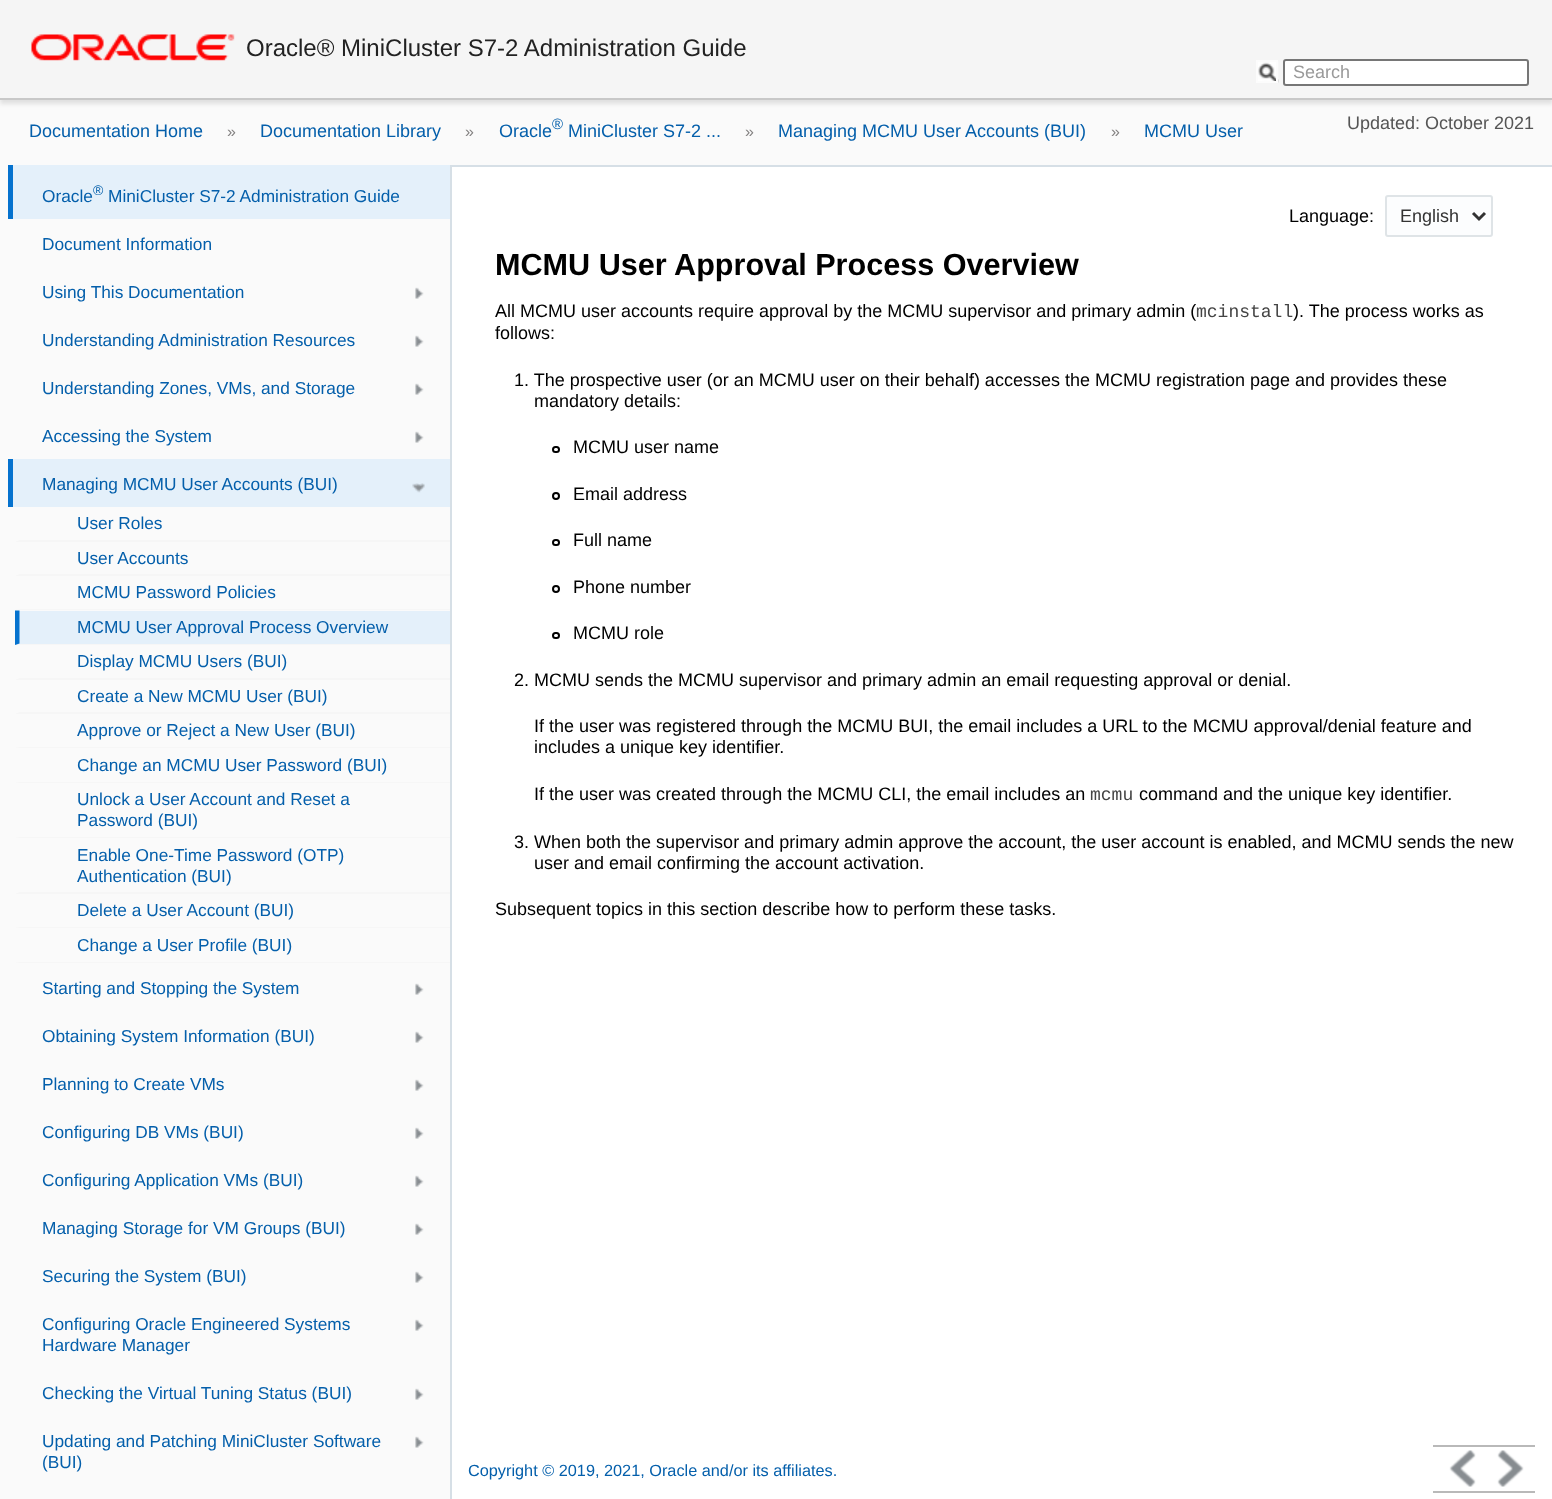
<?xml version="1.0" encoding="UTF-8"?>
<svg xmlns="http://www.w3.org/2000/svg" width="1552" height="1499">
    <defs>
        <filter id="blur1" x="-50%" y="-200%" width="200%" height="500%"><feGaussianBlur stdDeviation="2"/></filter>
    </defs>
    <rect width="100%" height="100%" fill="#FFFFFF"/>
    <rect x="0" y="100" width="1552" height="65" fill="#FAFAFA"/>
    <rect x="0" y="5" width="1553" height="99" fill="#000000" fill-opacity="0.1" filter="url(#blur1)"/>
    <rect x="0" y="0" width="1552" height="98" fill="#F5F5F5"/>
    <rect x="0" y="98" width="1552" height="2" fill="#C8C8C8"/>
    <image x="31" y="34" width="204" height="27" href="img_01.png"/>
    <text x="246" y="56" font-family="Liberation Sans" font-size="24" fill="#222222">Oracle® MiniCluster S7-2 Administration Guide</text>
    <image x="1258" y="61" width="21" height="22" href="img_02.png"/>
    <rect x="1257" y="61" width="20" height="21" fill="none" stroke="#FCFCFC" stroke-width="2"/>
    <rect x="1284" y="60" width="244" height="25" rx="2" fill="#FFFFFF" stroke="#767676" stroke-width="2"/>
    <text x="1293" y="78" font-family="Liberation Sans" font-size="18" fill="#9A9A9A">Search</text>
    <rect x="452" y="165" width="1100" height="2" fill="#D6DFE6"/>
    <text x="29" y="137" font-family="Liberation Sans" font-size="18" fill="#045FAB">Documentation Home</text>
    <text x="227" y="137" font-family="Liberation Sans" font-size="16" fill="#848282">»</text>
    <text x="260" y="137" font-family="Liberation Sans" font-size="18" fill="#045FAB">Documentation Library</text>
    <text x="465" y="137" font-family="Liberation Sans" font-size="16" fill="#848282">»</text>
    <text x="499" y="137" font-family="Liberation Sans" font-size="18" fill="#045FAB">Oracle</text>
    <text x="552" y="129" font-family="Liberation Sans" font-size="15" fill="#045FAB">®</text>
    <text x="568" y="137" font-family="Liberation Sans" font-size="18" fill="#045FAB">MiniCluster S7-2 ...</text>
    <text x="745" y="137" font-family="Liberation Sans" font-size="16" fill="#848282">»</text>
    <text x="778" y="137" font-family="Liberation Sans" font-size="18" fill="#045FAB">Managing MCMU User Accounts (BUI)</text>
    <text x="1111" y="137" font-family="Liberation Sans" font-size="16" fill="#848282">»</text>
    <text x="1144" y="137" font-family="Liberation Sans" font-size="18" fill="#045FAB">MCMU User</text>
    <text x="1347" y="129" font-family="Liberation Sans" font-size="18" fill="#555555">Updated: October 2021</text>
    <rect x="0" y="165" width="450" height="1334" fill="#FAFAFA"/>
    <rect x="450" y="165" width="2" height="1334" fill="#D6DFE6"/>
    <rect x="13" y="165" width="437" height="54" fill="#E4F0FA"/>
    <rect x="8" y="165" width="5" height="54" fill="#0572CE"/>
    <text x="42" y="202" font-family="Liberation Sans" font-size="17.3" fill="#045FAB">Oracle</text>
    <text x="93" y="195" font-family="Liberation Sans" font-size="14" fill="#045FAB">®</text>
    <text x="108" y="202" font-family="Liberation Sans" font-size="17.3" fill="#045FAB">MiniCluster S7-2 Administration Guide</text>
    <text x="42" y="250" font-family="Liberation Sans" font-size="17.3" fill="#045FAB">Document Information</text>
    <image x="415" y="287" width="9" height="12" href="img_03.png"/>
    <text x="42" y="298" font-family="Liberation Sans" font-size="17.3" fill="#045FAB">Using This Documentation</text>
    <image x="415" y="335" width="9" height="12" href="img_03.png"/>
    <text x="42" y="346" font-family="Liberation Sans" font-size="17.3" fill="#045FAB">Understanding Administration Resources</text>
    <image x="415" y="383" width="9" height="12" href="img_03.png"/>
    <text x="42" y="394" font-family="Liberation Sans" font-size="17.3" fill="#045FAB">Understanding Zones, VMs, and Storage</text>
    <image x="415" y="431" width="9" height="12" href="img_03.png"/>
    <text x="42" y="442" font-family="Liberation Sans" font-size="17.3" fill="#045FAB">Accessing the System</text>
    <rect x="13" y="459" width="437" height="48" fill="#E4F0FA"/>
    <image x="412" y="483" width="13" height="10" href="img_04.png"/>
    <rect x="8" y="459" width="5" height="48" fill="#0572CE"/>
    <text x="42" y="490" font-family="Liberation Sans" font-size="17.3" fill="#045FAB">Managing MCMU User Accounts (BUI)</text>
    <path d="M 450 542 H 15 L 20 540 H 450 Z" fill="#F6F6F6"/>
    <text x="77" y="529" font-family="Liberation Sans" font-size="17.3" fill="#045FAB">User Roles</text>
    <path d="M 450 576 H 15 L 20 574 H 450 Z" fill="#F6F6F6"/>
    <text x="77" y="564" font-family="Liberation Sans" font-size="17.3" fill="#045FAB">User Accounts</text>
    <path d="M 450 610 H 15 L 20 609 H 450 Z" fill="#F6F6F6"/>
    <text x="77" y="598" font-family="Liberation Sans" font-size="17.3" fill="#045FAB">MCMU Password Policies</text>
    <rect x="15" y="611" width="435" height="34" fill="#E4F0FA"/>
    <path d="M 450 645 H 15 L 20 644 H 450 Z" fill="#F6F6F6"/>
    <path d="M 15 645 V 610.5 H 19.5 V 643.5 Z" fill="#0572CE"/>
    <text x="77" y="633" font-family="Liberation Sans" font-size="17.3" fill="#045FAB">MCMU User Approval Process Overview</text>
    <path d="M 450 680 H 15 L 20 678 H 450 Z" fill="#F6F6F6"/>
    <text x="77" y="667" font-family="Liberation Sans" font-size="17.3" fill="#045FAB">Display MCMU Users (BUI)</text>
    <path d="M 450 714 H 15 L 20 712 H 450 Z" fill="#F6F6F6"/>
    <text x="77" y="702" font-family="Liberation Sans" font-size="17.3" fill="#045FAB">Create a New MCMU User (BUI)</text>
    <path d="M 450 748 H 15 L 20 747 H 450 Z" fill="#F6F6F6"/>
    <text x="77" y="736" font-family="Liberation Sans" font-size="17.3" fill="#045FAB">Approve or Reject a New User (BUI)</text>
    <path d="M 450 783 H 15 L 20 782 H 450 Z" fill="#F6F6F6"/>
    <text x="77" y="771" font-family="Liberation Sans" font-size="17.3" fill="#045FAB">Change an MCMU User Password (BUI)</text>
    <path d="M 450 838 H 15 L 20 837 H 450 Z" fill="#F6F6F6"/>
    <text font-family="Liberation Sans" font-size="17.3" fill="#045FAB">
        <tspan x="77" y="805">Unlock a User Account and Reset a</tspan>
        <tspan x="77" y="826">Password (BUI)</tspan>
    </text>
    <path d="M 450 894 H 15 L 20 892 H 450 Z" fill="#F6F6F6"/>
    <text font-family="Liberation Sans" font-size="17.3" fill="#045FAB">
        <tspan x="77" y="861">Enable One-Time Password (OTP)</tspan>
        <tspan x="77" y="882">Authentication (BUI)</tspan>
    </text>
    <path d="M 450 928 H 15 L 20 927 H 450 Z" fill="#F6F6F6"/>
    <text x="77" y="916" font-family="Liberation Sans" font-size="17.3" fill="#045FAB">Delete a User Account (BUI)</text>
    <path d="M 450 963 H 15 L 20 962 H 450 Z" fill="#F6F6F6"/>
    <text x="77" y="951" font-family="Liberation Sans" font-size="17.3" fill="#045FAB">Change a User Profile (BUI)</text>
    <image x="415" y="983" width="9" height="12" href="img_03.png"/>
    <text x="42" y="994" font-family="Liberation Sans" font-size="17.3" fill="#045FAB">Starting and Stopping the System</text>
    <image x="415" y="1031" width="9" height="12" href="img_05.png"/>
    <text x="42" y="1042" font-family="Liberation Sans" font-size="17.3" fill="#045FAB">Obtaining System Information (BUI)</text>
    <image x="415" y="1079" width="9" height="12" href="img_03.png"/>
    <text x="42" y="1090" font-family="Liberation Sans" font-size="17.3" fill="#045FAB">Planning to Create VMs</text>
    <image x="415" y="1127" width="9" height="12" href="img_03.png"/>
    <text x="42" y="1138" font-family="Liberation Sans" font-size="17.3" fill="#045FAB">Configuring DB VMs (BUI)</text>
    <image x="415" y="1175" width="9" height="12" href="img_03.png"/>
    <text x="42" y="1186" font-family="Liberation Sans" font-size="17.3" fill="#045FAB">Configuring Application VMs (BUI)</text>
    <image x="415" y="1223" width="9" height="12" href="img_03.png"/>
    <text x="42" y="1234" font-family="Liberation Sans" font-size="17.3" fill="#045FAB">Managing Storage for VM Groups (BUI)</text>
    <image x="415" y="1271" width="9" height="12" href="img_03.png"/>
    <text x="42" y="1282" font-family="Liberation Sans" font-size="17.3" fill="#045FAB">Securing the System (BUI)</text>
    <image x="415" y="1319" width="9" height="12" href="img_03.png"/>
    <text font-family="Liberation Sans" font-size="17.3" fill="#045FAB">
        <tspan x="42" y="1330">Configuring Oracle Engineered Systems</tspan>
        <tspan x="42" y="1351">Hardware Manager</tspan>
    </text>
    <image x="415" y="1388" width="9" height="12" href="img_03.png"/>
    <text x="42" y="1399" font-family="Liberation Sans" font-size="17.3" fill="#045FAB">Checking the Virtual Tuning Status (BUI)</text>
    <image x="415" y="1436" width="9" height="12" href="img_03.png"/>
    <text font-family="Liberation Sans" font-size="17.3" fill="#045FAB">
        <tspan x="42" y="1447">Updating and Patching MiniCluster Software</tspan>
        <tspan x="42" y="1468">(BUI)</tspan>
    </text>
    <text x="1289" y="222" font-family="Liberation Sans" font-size="18" fill="#000000">Language:</text>
    <rect x="1386" y="196" width="106" height="40" rx="2" fill="#FCFDFE" stroke="#DFE4E7" stroke-width="2"/>
    <path d="M 1473 213 L 1479 219 L 1485 213" fill="none" stroke="#333333" stroke-width="3"/>
    <text x="1400" y="222" font-family="Liberation Sans" font-size="18" fill="#333333">English</text>
    <text x="495" y="275" font-family="Liberation Sans" font-size="30.6" font-weight="700" fill="#000000">MCMU User Approval Process Overview</text>
    <text x="495" y="317" font-family="Liberation Sans" font-size="18" fill="#000000">All MCMU user accounts require approval by the MCMU supervisor and primary admin (</text>
    <text x="1196" y="317" font-family="Liberation Mono" font-size="18" fill="#444444">mcinstall</text>
    <text x="1293" y="317" font-family="Liberation Sans" font-size="18" fill="#000000">). The process works as</text>
    <text x="495" y="339" font-family="Liberation Sans" font-size="18" fill="#000000">follows:</text>
    <text x="514" y="386" font-family="Liberation Sans" font-size="18" fill="#000000">1. The prospective user (or an MCMU user on their behalf) accesses the MCMU registration page and provides these</text>
    <text x="534" y="407" font-family="Liberation Sans" font-size="18" fill="#000000">mandatory details:</text>
    <rect x="553" y="447" width="6" height="5" rx="2.5" fill="none" stroke="#000000" stroke-width="2"/>
    <text x="573" y="453" font-family="Liberation Sans" font-size="18" fill="#000000">MCMU user name</text>
    <circle cx="556" cy="496" r="3" fill="none" stroke="#000000" stroke-width="2"/>
    <text x="573" y="500" font-family="Liberation Sans" font-size="18" fill="#000000">Email address</text>
    <rect x="553" y="540" width="6" height="5" rx="2.5" fill="none" stroke="#000000" stroke-width="2"/>
    <text x="573" y="546" font-family="Liberation Sans" font-size="18" fill="#000000">Full name</text>
    <circle cx="556" cy="589" r="3" fill="none" stroke="#000000" stroke-width="2"/>
    <text x="573" y="593" font-family="Liberation Sans" font-size="18" fill="#000000">Phone number</text>
    <rect x="553" y="633" width="6" height="5" rx="2.5" fill="none" stroke="#000000" stroke-width="2"/>
    <text x="573" y="639" font-family="Liberation Sans" font-size="18" fill="#000000">MCMU role</text>
    <text x="514" y="686" font-family="Liberation Sans" font-size="18" fill="#000000">2. MCMU sends the MCMU supervisor and primary admin an email requesting approval or denial.</text>
    <text font-family="Liberation Sans" font-size="18" fill="#000000">
        <tspan x="534" y="732">If the user was registered through the MCMU BUI, the email includes a URL to the MCMU approval/denial feature and</tspan>
        <tspan x="534" y="753">includes a unique key identifier.</tspan>
    </text>
    <text x="534" y="800" font-family="Liberation Sans" font-size="18" fill="#000000">If the user was created through the MCMU CLI, the email includes an</text>
    <text x="1090" y="800" font-family="Liberation Mono" font-size="18" fill="#444444">mcmu</text>
    <text x="1139" y="800" font-family="Liberation Sans" font-size="18" fill="#000000">command and the unique key identifier.</text>
    <text x="514" y="848" font-family="Liberation Sans" font-size="18" fill="#000000">3. When both the supervisor and primary admin approve the account, the user account is enabled, and MCMU sends the new</text>
    <text x="534" y="869" font-family="Liberation Sans" font-size="18" fill="#000000">user and email confirming the account activation.</text>
    <text x="495" y="915" font-family="Liberation Sans" font-size="18" fill="#000000">Subsequent topics in this section describe how to perform these tasks.</text>
    <text x="468" y="1476" font-family="Liberation Sans" font-size="16.3" fill="#045FAB">Copyright © 2019, 2021, Oracle and/or its affiliates.</text>
    <rect x="1433" y="1445" width="102" height="2" fill="#B9B9B9"/>
    <rect x="1433" y="1491" width="102" height="2" fill="#B9B9B9"/>
    <image x="1449" y="1450" width="27" height="37" href="img_06.png"/>
    <image x="1497" y="1450" width="27" height="37" href="img_07.png"/>
</svg>
